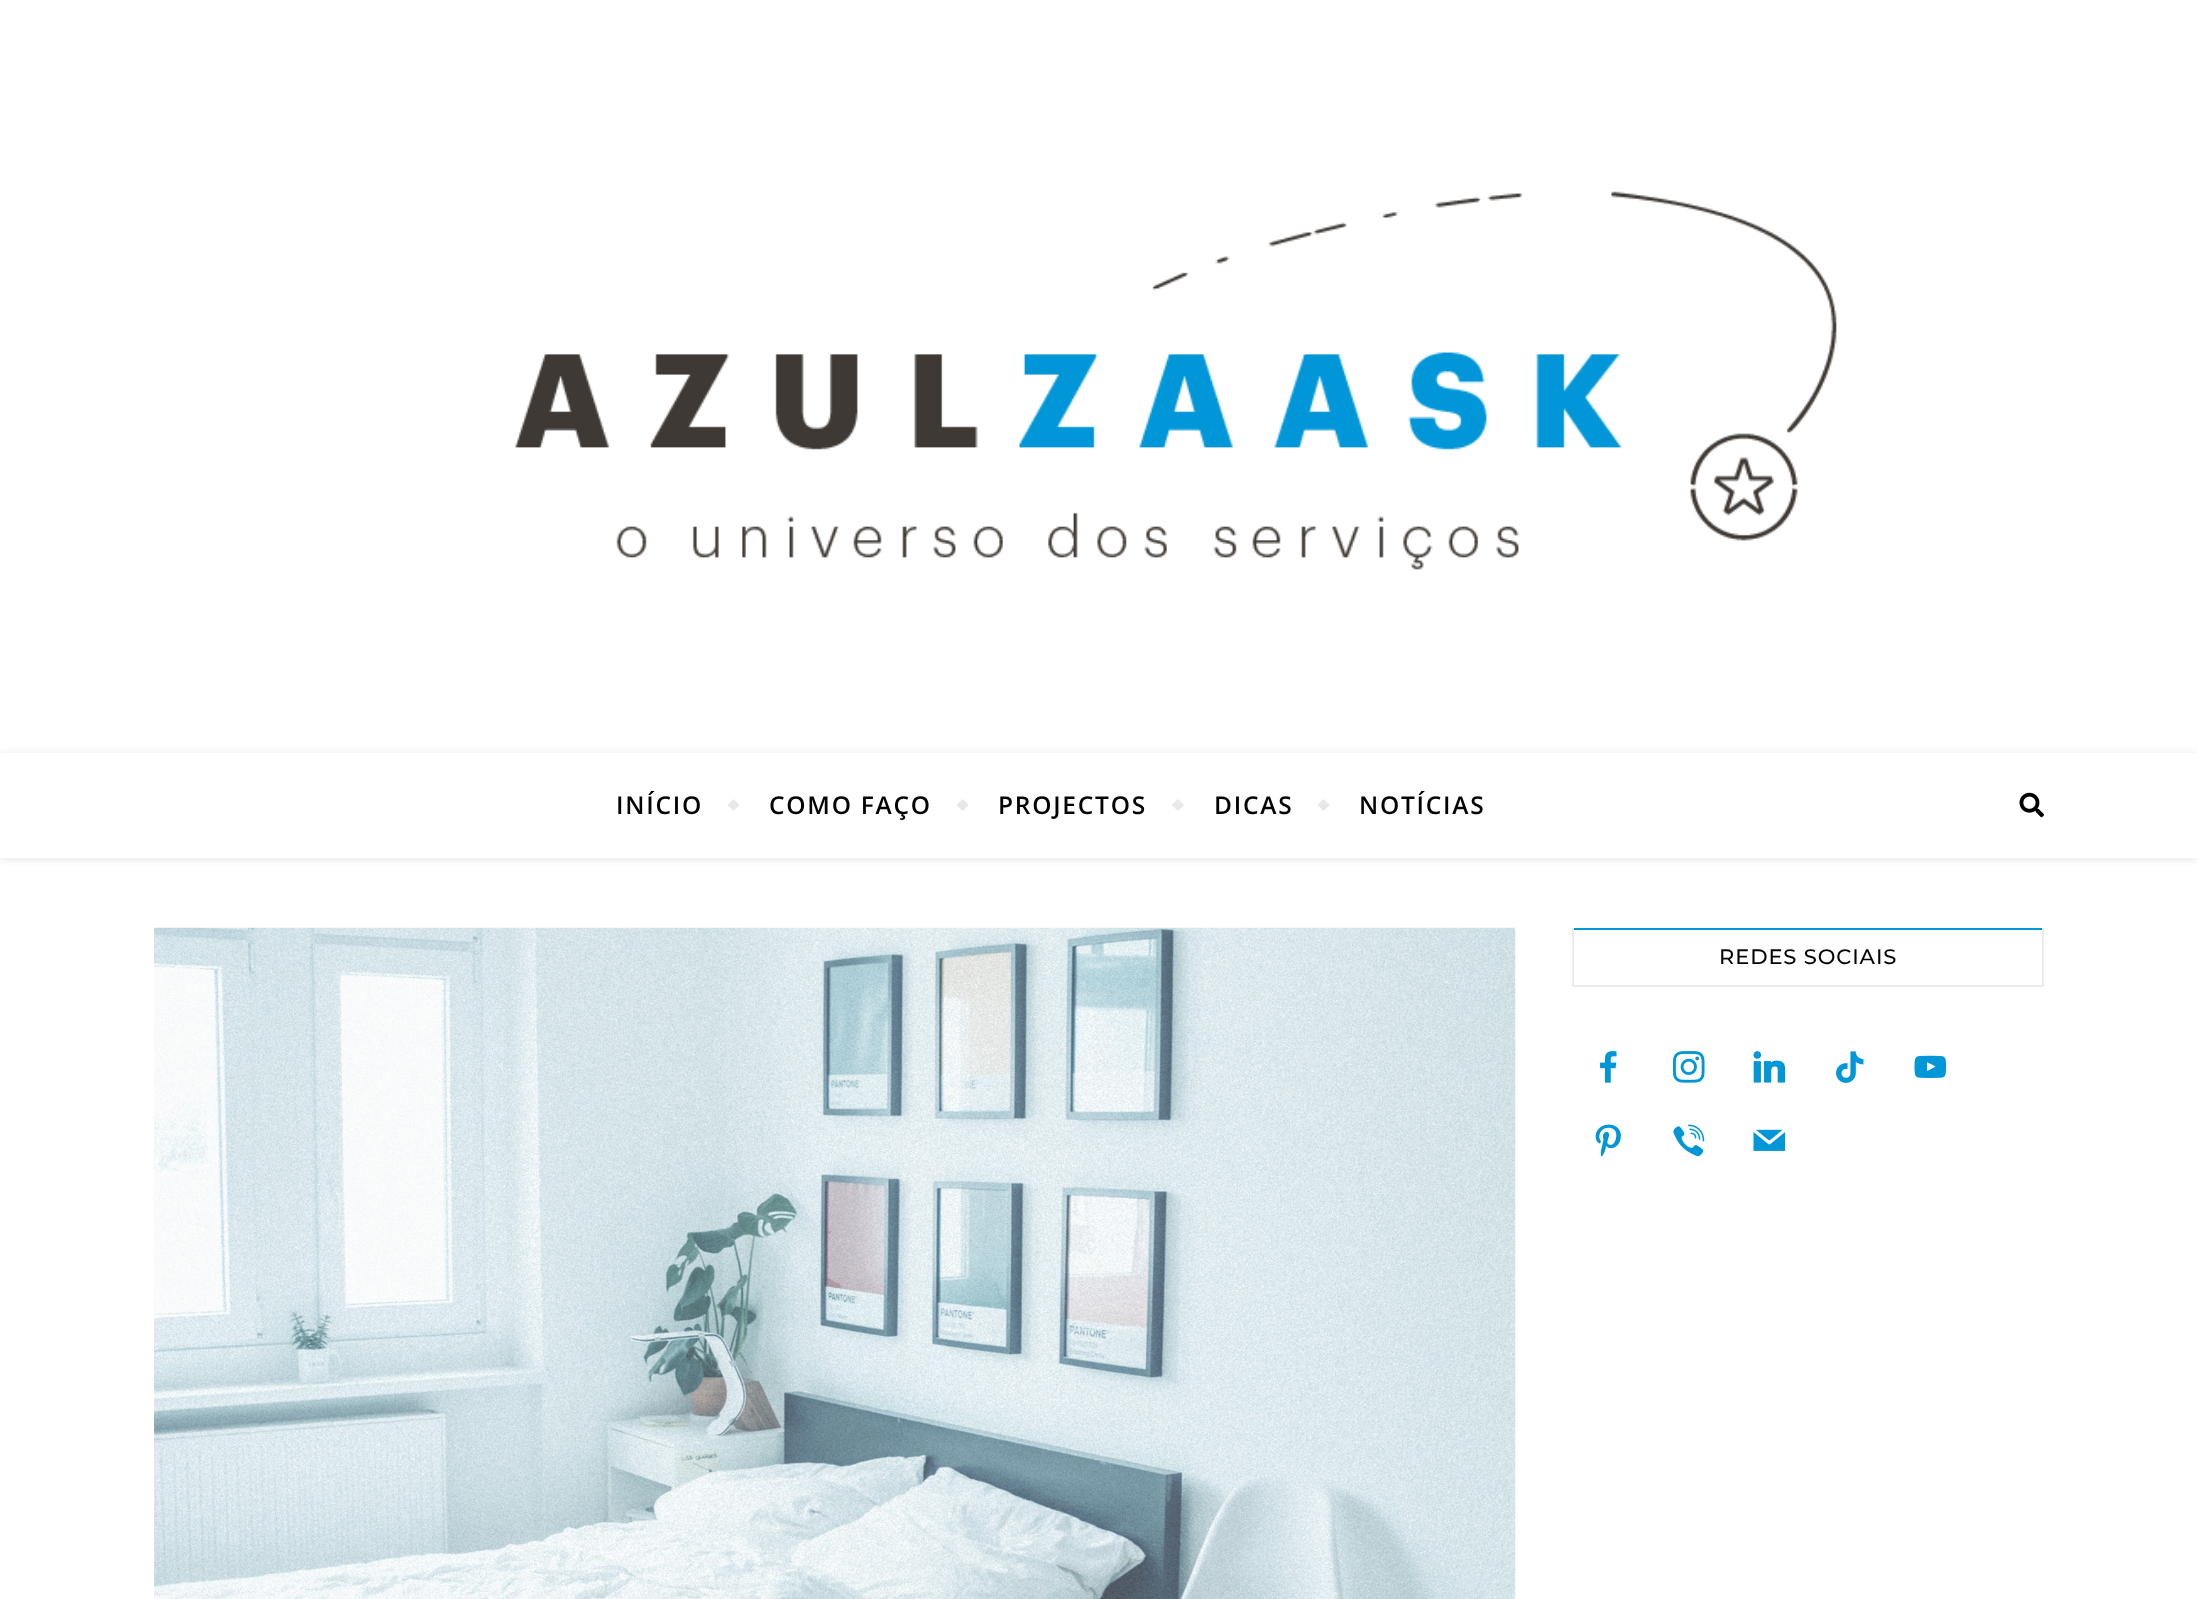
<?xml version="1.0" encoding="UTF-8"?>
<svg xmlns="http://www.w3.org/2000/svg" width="2197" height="1599">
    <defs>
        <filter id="blur1" x="-50%" y="-200%" width="200%" height="500%"><feGaussianBlur stdDeviation="4.5"/></filter>
    </defs>
    <rect width="100%" height="100%" fill="#FFFFFF"/>
    <image x="515" y="191" width="1322" height="379" href="img_01.png"/>
    <rect x="0" y="754" width="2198" height="105" fill="#000000" fill-opacity="0.1" filter="url(#blur1)"/>
    <rect x="0" y="753" width="2197" height="105" fill="#FFFFFF"/>
    <text x="616" y="814" font-family="Open Sans" font-size="24.5" font-weight="600" letter-spacing="1.75" fill="#030303">INÍCIO</text>
    <path d="M 727.5 805 L 733.5 799 L 739.5 805 L 733.5 811 Z" fill="#E8E8E8"/>
    <text x="769" y="814" font-family="Open Sans" font-size="24.5" font-weight="600" letter-spacing="1.75" fill="#030303">COMO FAÇO</text>
    <path d="M 956.5 805 L 962.5 799 L 969 805 L 962.5 811 Z" fill="#E8E8E8"/>
    <text x="998" y="814" font-family="Open Sans" font-size="24.5" font-weight="600" letter-spacing="1.75" fill="#030303">PROJECTOS</text>
    <path d="M 1171.5 805 L 1178 799 L 1184 805 L 1178 811 Z" fill="#E8E8E8"/>
    <text x="1214" y="814" font-family="Open Sans" font-size="24.5" font-weight="600" letter-spacing="1.75" fill="#030303">DICAS</text>
    <path d="M 1317.5 805 L 1323.5 799 L 1330 805 L 1323.5 811 Z" fill="#E8E8E8"/>
    <text x="1359" y="814" font-family="Open Sans" font-size="24.5" font-weight="600" letter-spacing="1.75" fill="#030303">NOTÍCIAS</text>
    <image x="2019" y="792" width="25" height="26" href="img_02.png"/>
    <image x="154" y="927" width="1362" height="672" href="img_03.png"/>
    <rect x="1572" y="928" width="472" height="2" fill="#0096D7"/>
    <rect x="2042" y="928" width="2" height="59" fill="#EBEBEB"/>
    <rect x="1572" y="985" width="472" height="2" fill="#EBEBEB"/>
    <rect x="1572" y="928" width="2" height="59" fill="#EBEBEB"/>
    <text x="1719" y="964" font-family="Montserrat" font-size="21" font-weight="500" letter-spacing="0.9" fill="#030303">REDES SOCIAIS</text>
    <image x="1600" y="1051" width="17" height="32" href="img_04.png"/>
    <image x="1673" y="1051" width="32" height="32" href="img_05.png"/>
    <image x="1753" y="1051" width="33" height="32" href="img_06.png"/>
    <image x="1836" y="1051" width="28" height="32" href="img_07.png"/>
    <image x="1914" y="1055" width="33" height="23" href="img_08.png"/>
    <image x="1595" y="1124" width="26" height="33" href="img_09.png"/>
    <image x="1673" y="1124" width="32" height="33" href="img_10.png"/>
    <image x="1753" y="1129" width="33" height="22" href="img_11.png"/>
</svg>
